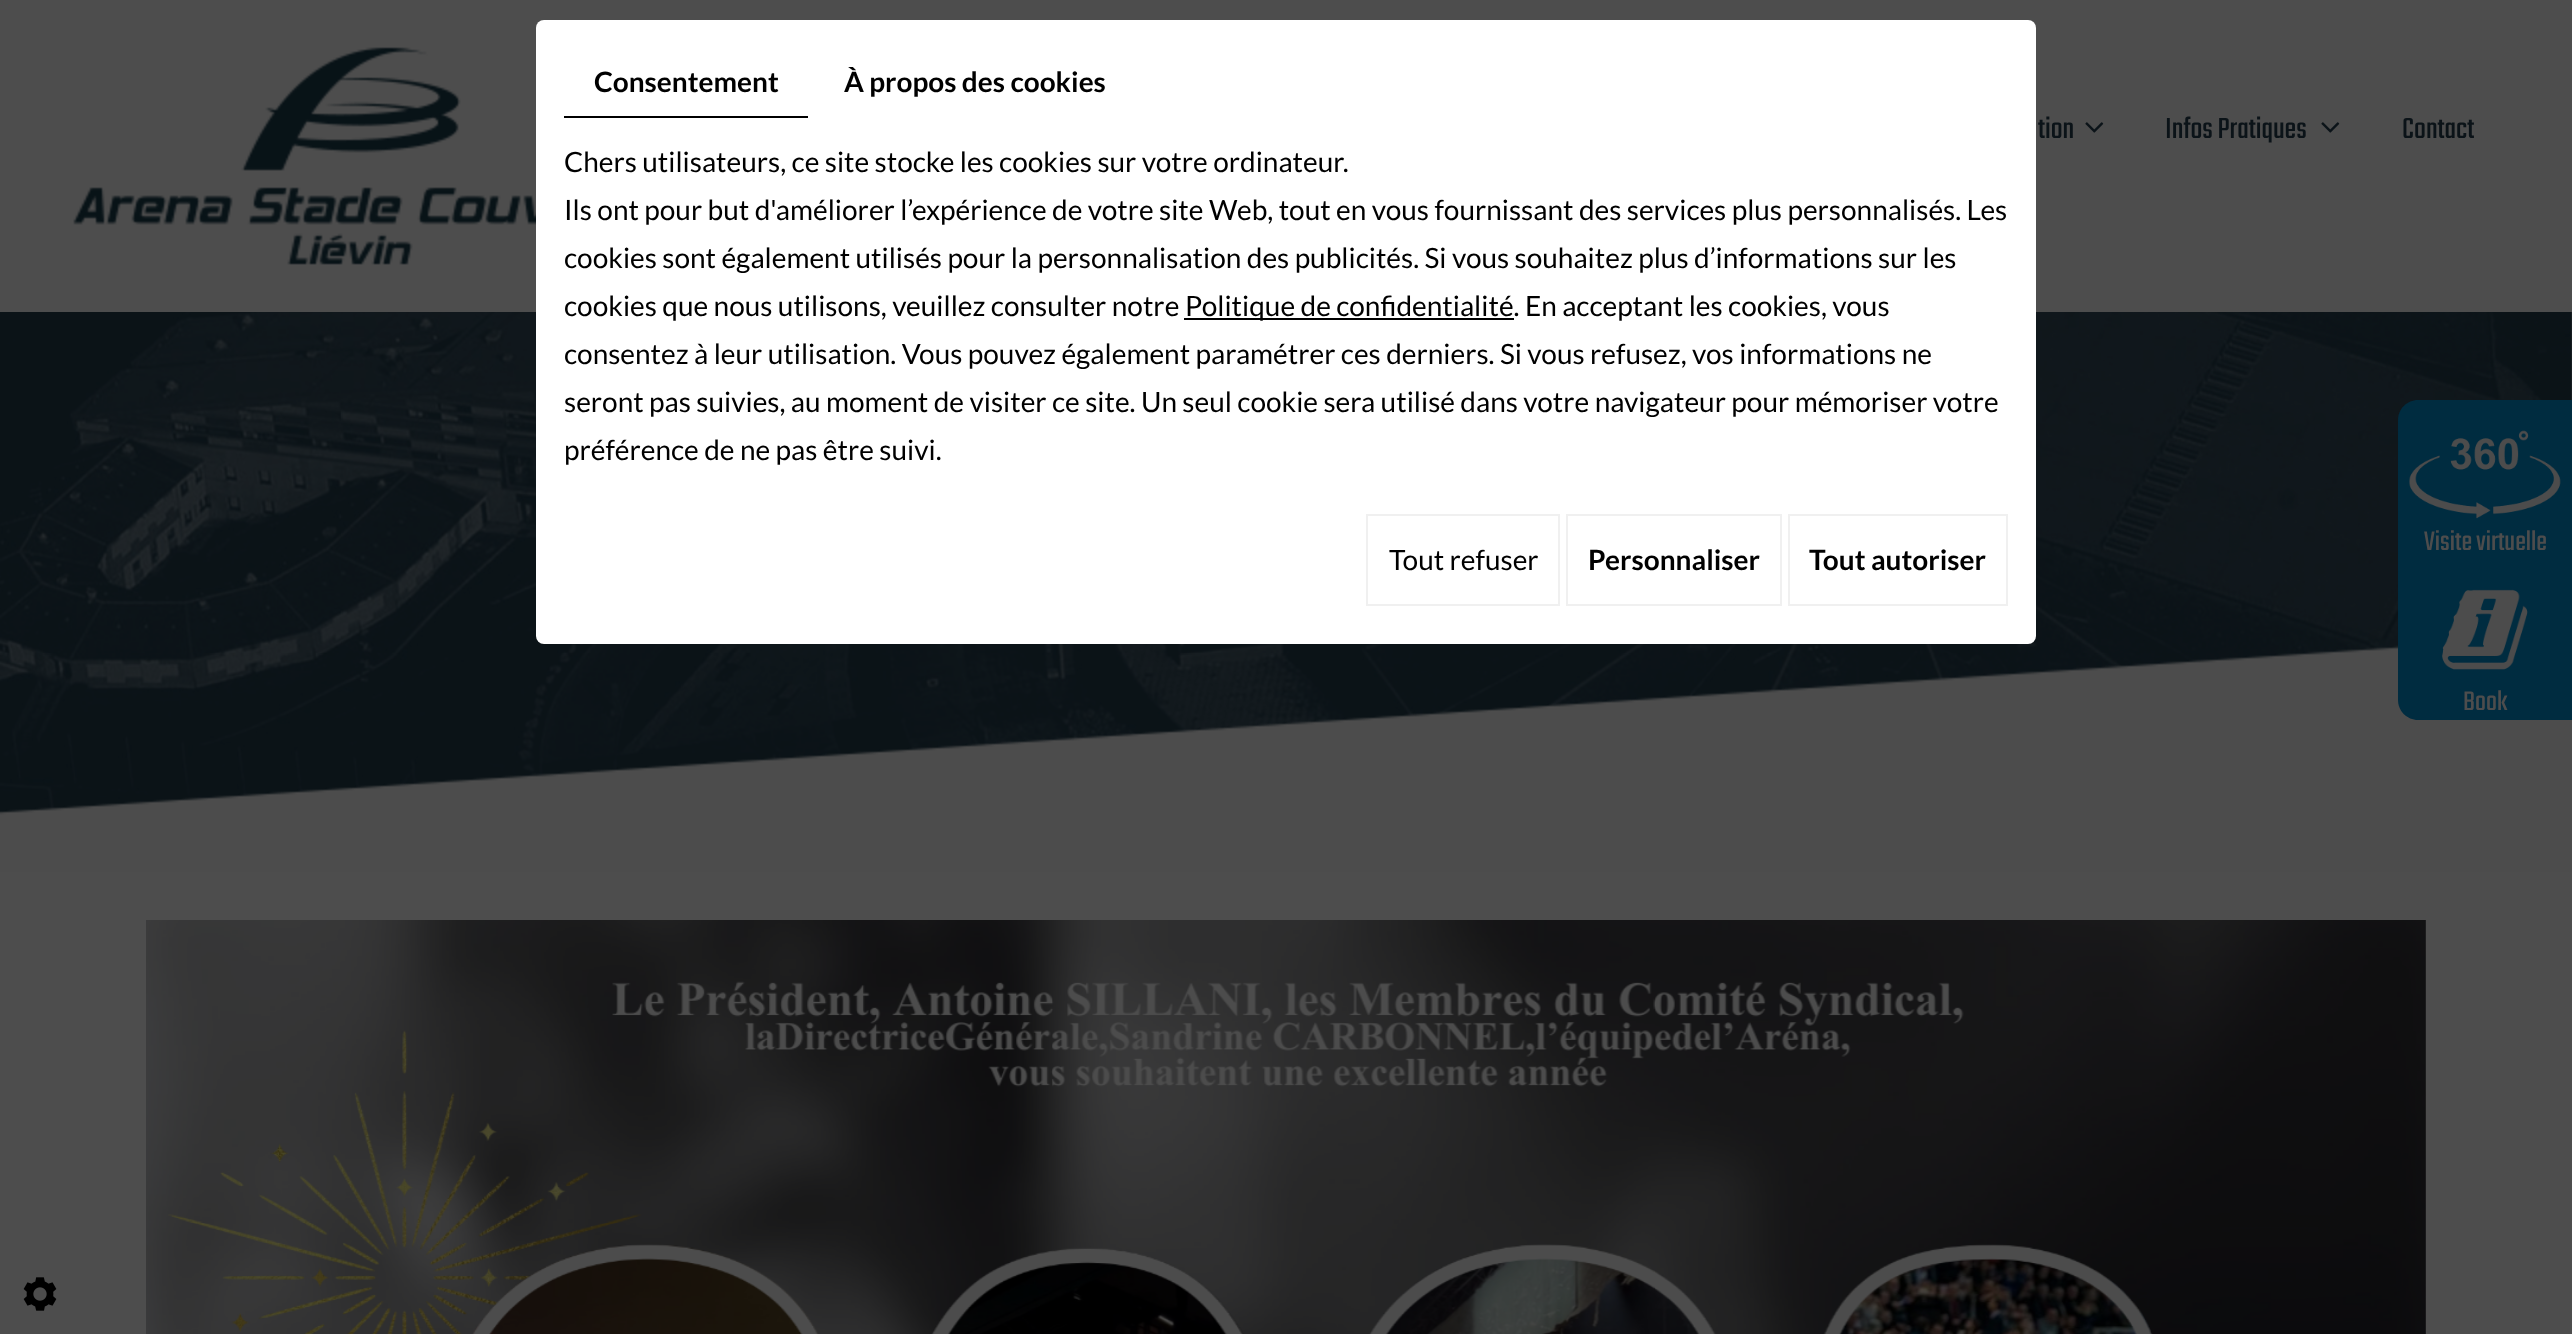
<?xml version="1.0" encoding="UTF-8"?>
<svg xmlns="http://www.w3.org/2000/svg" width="2572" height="1334">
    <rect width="100%" height="100%" fill="#4D4D4D"/>
    <image x="0" y="312" width="2572" height="503" href="img_04.png"/>
    <rect x="536" y="20" width="1500" height="624" rx="8" fill="#FFFFFF"/>
    <rect x="564" y="116" width="244" height="2" fill="#000000"/>
    <text x="594" y="92" font-family="Lato" font-size="28" font-weight="700" fill="#000000">Consentement</text>
    <text x="844" y="92" font-family="Lato" font-size="28" font-weight="700" fill="#000000">À propos des cookies</text>
    <text font-family="Lato" font-size="28" fill="#000000">
        <tspan x="564" y="172">Chers utilisateurs, ce site stocke les cookies sur votre ordinateur.</tspan>
        <tspan x="564" y="220">Ils ont pour but d'améliorer l’expérience de votre site Web, tout en vous fournissant des services plus personnalisés. Les</tspan>
        <tspan x="564" y="268">cookies sont également utilisés pour la personnalisation des publicités. Si vous souhaitez plus d’informations sur les</tspan>
        <tspan x="564" y="316">cookies que nous utilisons, veuillez consulter notre</tspan>
    </text>
    <rect x="1184" y="318" width="330" height="2" fill="#000000"/>
    <text x="1185" y="316" font-family="Lato" font-size="28" fill="#000000">Politique de confidentialité. En acceptant les cookies, vous</text>
    <text font-family="Lato" font-size="28" fill="#000000">
        <tspan x="564" y="364">consentez à leur utilisation. Vous pouvez également paramétrer ces derniers. Si vous refusez, vos informations ne</tspan>
        <tspan x="564" y="412">seront pas suivies, au moment de visiter ce site. Un seul cookie sera utilisé dans votre navigateur pour mémoriser votre</tspan>
        <tspan x="564" y="460">préférence de ne pas être suivi.</tspan>
    </text>
    <rect x="1367" y="515" width="192" height="90" fill="none" stroke="#F0F0F0" stroke-width="2"/>
    <text x="1389" y="570" font-family="Lato" font-size="28" fill="#000000">Tout refuser</text>
    <rect x="1567" y="515" width="214" height="90" fill="none" stroke="#F0F0F0" stroke-width="2"/>
    <text x="1588" y="570" font-family="Lato" font-size="28" font-weight="700" fill="#000000">Personnaliser</text>
    <rect x="1789" y="515" width="218" height="90" fill="none" stroke="#F0F0F0" stroke-width="2"/>
    <text x="1809" y="570" font-family="Lato" font-size="28" font-weight="700" fill="#000000">Tout autoriser</text>
    <image x="23" y="1277" width="34" height="34" href="img_01.png"/>
    <image x="73" y="47" width="463" height="218" href="img_02.png"/>
    <text x="2038" y="138" font-family="Teko" font-size="32" fill="#0B1318">tion</text>
    <image x="2085" y="122" width="19" height="11" href="img_03.png"/>
    <text x="2165" y="138" font-family="Teko" font-size="32" fill="#0B1318">Infos Pratiques</text>
    <image x="2321" y="122" width="19" height="11" href="img_03.png"/>
    <text x="2402" y="138" font-family="Teko" font-size="32" fill="#0B1318">Contact</text>
    <image x="0" y="645" width="2572" height="227" href="img_05.png"/>
    <path d="M 2418 400 H 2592 V 560 H 2398 V 420 C 2398 409 2407 400 2418 400 Z" fill="#002C40"/>
    <image x="2409" y="430" width="152" height="89" href="img_06.png"/>
    <text x="2424" y="550" font-family="Teko" font-size="29.5" fill="#4D4D4D">Visite virtuelle</text>
    <path d="M 2398 560 H 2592 V 720 H 2418 C 2407 720 2398 711 2398 700 Z" fill="#002C40"/>
    <image x="2441" y="589" width="87" height="81" href="img_07.png"/>
    <text x="2463" y="710" font-family="Teko" font-size="29.5" fill="#4D4D4D">Book</text>
    <image x="146" y="920" width="2280" height="414" href="img_08.png"/>
</svg>
